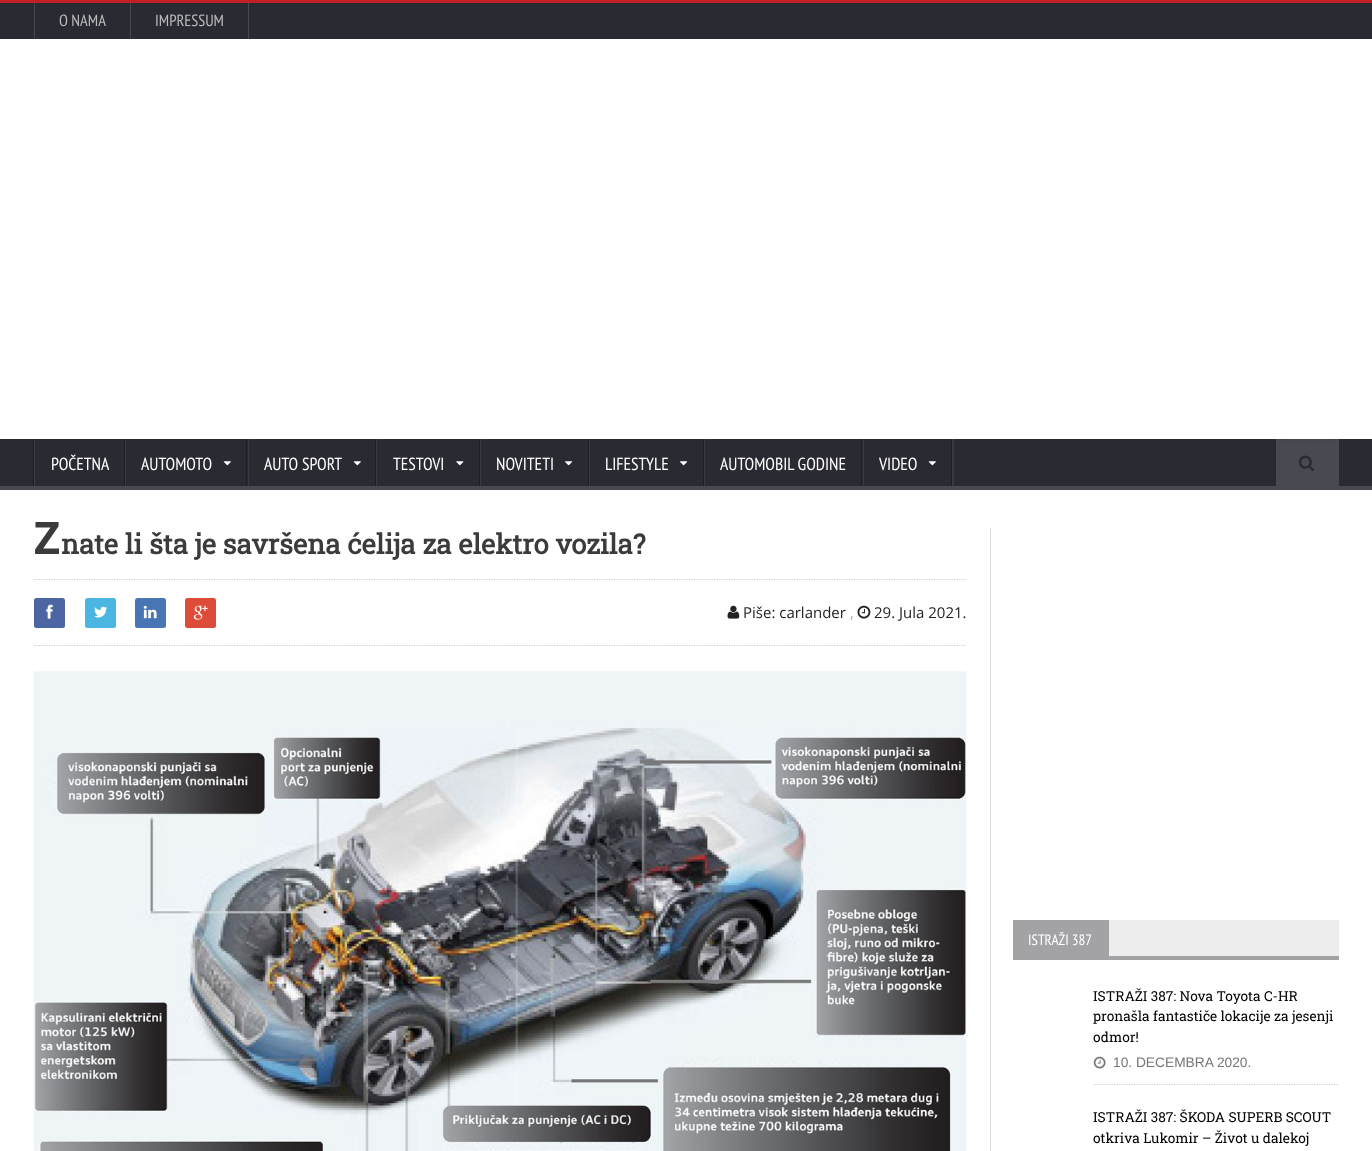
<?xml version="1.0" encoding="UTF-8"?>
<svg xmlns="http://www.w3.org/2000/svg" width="1372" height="1151">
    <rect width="100%" height="100%" fill="#FFFFFF"/>
    <rect x="0" y="3" width="1372" height="36" fill="#292A32"/>
    <rect x="0" y="0" width="1372" height="3" fill="#C12026"/>
    <rect x="34" y="3" width="1" height="36" fill="#494A51"/>
    <rect x="130" y="3" width="1" height="36" fill="#494A51"/>
    <text x="59" y="26" font-family="PT Sans Narrow" font-size="16.25" fill="#BCBCBC">O NAMA</text>
    <rect x="248" y="3" width="1" height="36" fill="#494A51"/>
    <text x="155" y="26" font-family="PT Sans Narrow" font-size="16.25" fill="#BCBCBC">IMPRESSUM</text>
    <rect x="0" y="439" width="1372" height="47" fill="#292A32"/>
    <rect x="0" y="486" width="1372" height="4" fill="#494A51"/>
    <rect x="33" y="439" width="1" height="47" fill="#1F2026"/>
    <rect x="124" y="439" width="1" height="47" fill="#1F2026"/>
    <rect x="34" y="439" width="1" height="47" fill="#3E3F46"/>
    <text x="51" y="470" font-family="PT Sans Narrow" font-size="17.5" fill="#FFFFFF">POČETNA</text>
    <rect x="246" y="439" width="1" height="47" fill="#1F2026"/>
    <rect x="125" y="439" width="1" height="47" fill="#3A3B42"/>
    <text x="141" y="470" font-family="PT Sans Narrow" font-size="17.5" fill="#FFFFFF">AUTOMOTO</text>
    <image x="223" y="461" width="8" height="5" href="img_01.png"/>
    <rect x="375" y="439" width="1" height="47" fill="#1F2026"/>
    <rect x="248" y="439" width="1" height="47" fill="#3A3B42"/>
    <text x="264" y="470" font-family="PT Sans Narrow" font-size="17.5" fill="#FFFFFF">AUTO SPORT</text>
    <image x="353" y="461" width="8" height="5" href="img_01.png"/>
    <rect x="479" y="439" width="1" height="47" fill="#1F2026"/>
    <rect x="376" y="439" width="1" height="47" fill="#3A3B42"/>
    <text x="393" y="470" font-family="PT Sans Narrow" font-size="17.5" fill="#FFFFFF">TESTOVI</text>
    <image x="456" y="461" width="8" height="5" href="img_02.png"/>
    <rect x="588" y="439" width="1" height="47" fill="#1F2026"/>
    <rect x="480" y="439" width="1" height="47" fill="#3A3B42"/>
    <text x="496" y="470" font-family="PT Sans Narrow" font-size="17.5" fill="#FFFFFF">NOVITETI</text>
    <image x="565" y="461" width="8" height="5" href="img_03.png"/>
    <rect x="703" y="439" width="1" height="47" fill="#1F2026"/>
    <rect x="589" y="439" width="1" height="47" fill="#3A3B42"/>
    <text x="605" y="470" font-family="PT Sans Narrow" font-size="17.5" fill="#FFFFFF">LIFESTYLE</text>
    <image x="680" y="461" width="8" height="5" href="img_03.png"/>
    <rect x="861" y="439" width="1" height="47" fill="#1F2026"/>
    <rect x="704" y="439" width="1" height="47" fill="#3A3B42"/>
    <text x="720" y="470" font-family="PT Sans Narrow" font-size="17.5" fill="#FFFFFF">AUTOMOBIL GODINE</text>
    <rect x="952" y="439" width="2" height="47" fill="#3A3B42"/>
    <rect x="951" y="439" width="1" height="47" fill="#1F2026"/>
    <rect x="863" y="439" width="1" height="47" fill="#3A3B42"/>
    <text x="879" y="470" font-family="PT Sans Narrow" font-size="17.5" fill="#FFFFFF">VIDEO</text>
    <image x="928" y="461" width="8" height="5" href="img_01.png"/>
    <rect x="1276" y="439" width="63" height="47" fill="#494A51"/>
    <path d="M 1279 441 H 1336 C 1338 441 1339 442 1339 444 C 1339 436 1335 439 1327 439 H 1288 C 1280 439 1276 436 1276 444 C 1276 442 1277 441 1279 441 Z" fill="#000000" fill-opacity="0.03"/>
    <image x="1298" y="455" width="16" height="16" href="img_04.png"/>
    <text x="34" y="554" font-family="Noto Sans" font-size="45" font-weight="700" fill="#3B3B3B">Z</text>
    <text x="61" y="554" font-family="Roboto Slab" font-size="27.5" font-weight="700" fill="#3B3B3B">nate li šta je savršena ćelija za elektro vozila?</text>
    <path d="M 34 579.5 H 966" fill="none" stroke="#CCCCCC" stroke-width="1.2" stroke-dasharray="1.25 1.25"/>
    <path d="M 34 645.5 H 966" fill="none" stroke="#CCCCCC" stroke-width="1.2" stroke-dasharray="1.25 1.25"/>
    <rect x="34" y="598" width="31" height="30" rx="2.5" fill="#4C66A4"/>
    <image x="46" y="604" width="7" height="15" href="img_05.png"/>
    <rect x="85" y="598" width="31" height="30" rx="2.5" fill="#4CB6E2"/>
    <image x="94" y="606" width="14" height="12" href="img_06.png"/>
    <rect x="135" y="598" width="31" height="30" rx="2.5" fill="#4875B4"/>
    <image x="143" y="605" width="14" height="14" href="img_07.png"/>
    <rect x="185" y="598" width="31" height="30" rx="2.5" fill="#DD4B39"/>
    <image x="193" y="605" width="15" height="15" href="img_08.png"/>
    <image x="727" y="605" width="13" height="14" href="img_09.png"/>
    <text x="743" y="618" font-family="Open Sans" font-size="15" fill="#232323">Piše: carlander</text>
    <text x="850" y="618" font-family="Open Sans" font-size="15" fill="#AAAAAA">,</text>
    <image x="857" y="605" width="14" height="14" href="img_10.png"/>
    <text x="874" y="618" font-family="Open Sans" font-size="15" fill="#232323">29. Jula 2021.</text>
    <image x="33" y="671" width="934" height="480" href="img_11.png"/>
    <rect x="990" y="528" width="1" height="623" fill="#D9D9D9"/>
    <rect x="1109" y="920" width="230" height="36" fill="#EDEDED"/>
    <rect x="1013" y="920" width="96" height="36" fill="#A3A3A6"/>
    <text x="1028" y="945" font-family="PT Sans Narrow" font-size="15" fill="#FFFFFF">ISTRAŽI 387</text>
    <rect x="1013" y="956" width="326" height="4" fill="#A3A3A6"/>
    <path d="M 1094 1084.5 H 1339" fill="none" stroke="#CCCCCC" stroke-width="1.2" stroke-dasharray="1.25 1.25"/>
    <text font-family="Roboto Slab" font-size="13.75" fill="#000000">
        <tspan x="1093" y="1001">ISTRAŽI 387: Nova Toyota C-HR</tspan>
        <tspan x="1093" y="1021">pronašla fantastiče lokacije za jesenji</tspan>
        <tspan x="1093" y="1042">odmor!</tspan>
    </text>
    <image x="1093" y="1056" width="13" height="13" href="img_12.png"/>
    <text x="1113" y="1067" font-family="Liberation Sans" font-size="13.75" fill="#767676">10. DECEMBRA 2020.</text>
    <text font-family="Roboto Slab" font-size="13.75" fill="#000000">
        <tspan x="1093" y="1122">ISTRAŽI 387: ŠKODA SUPERB SCOUT</tspan>
        <tspan x="1093" y="1143">otkriva Lukomir – Život u dalekoj</tspan>
    </text>
</svg>
